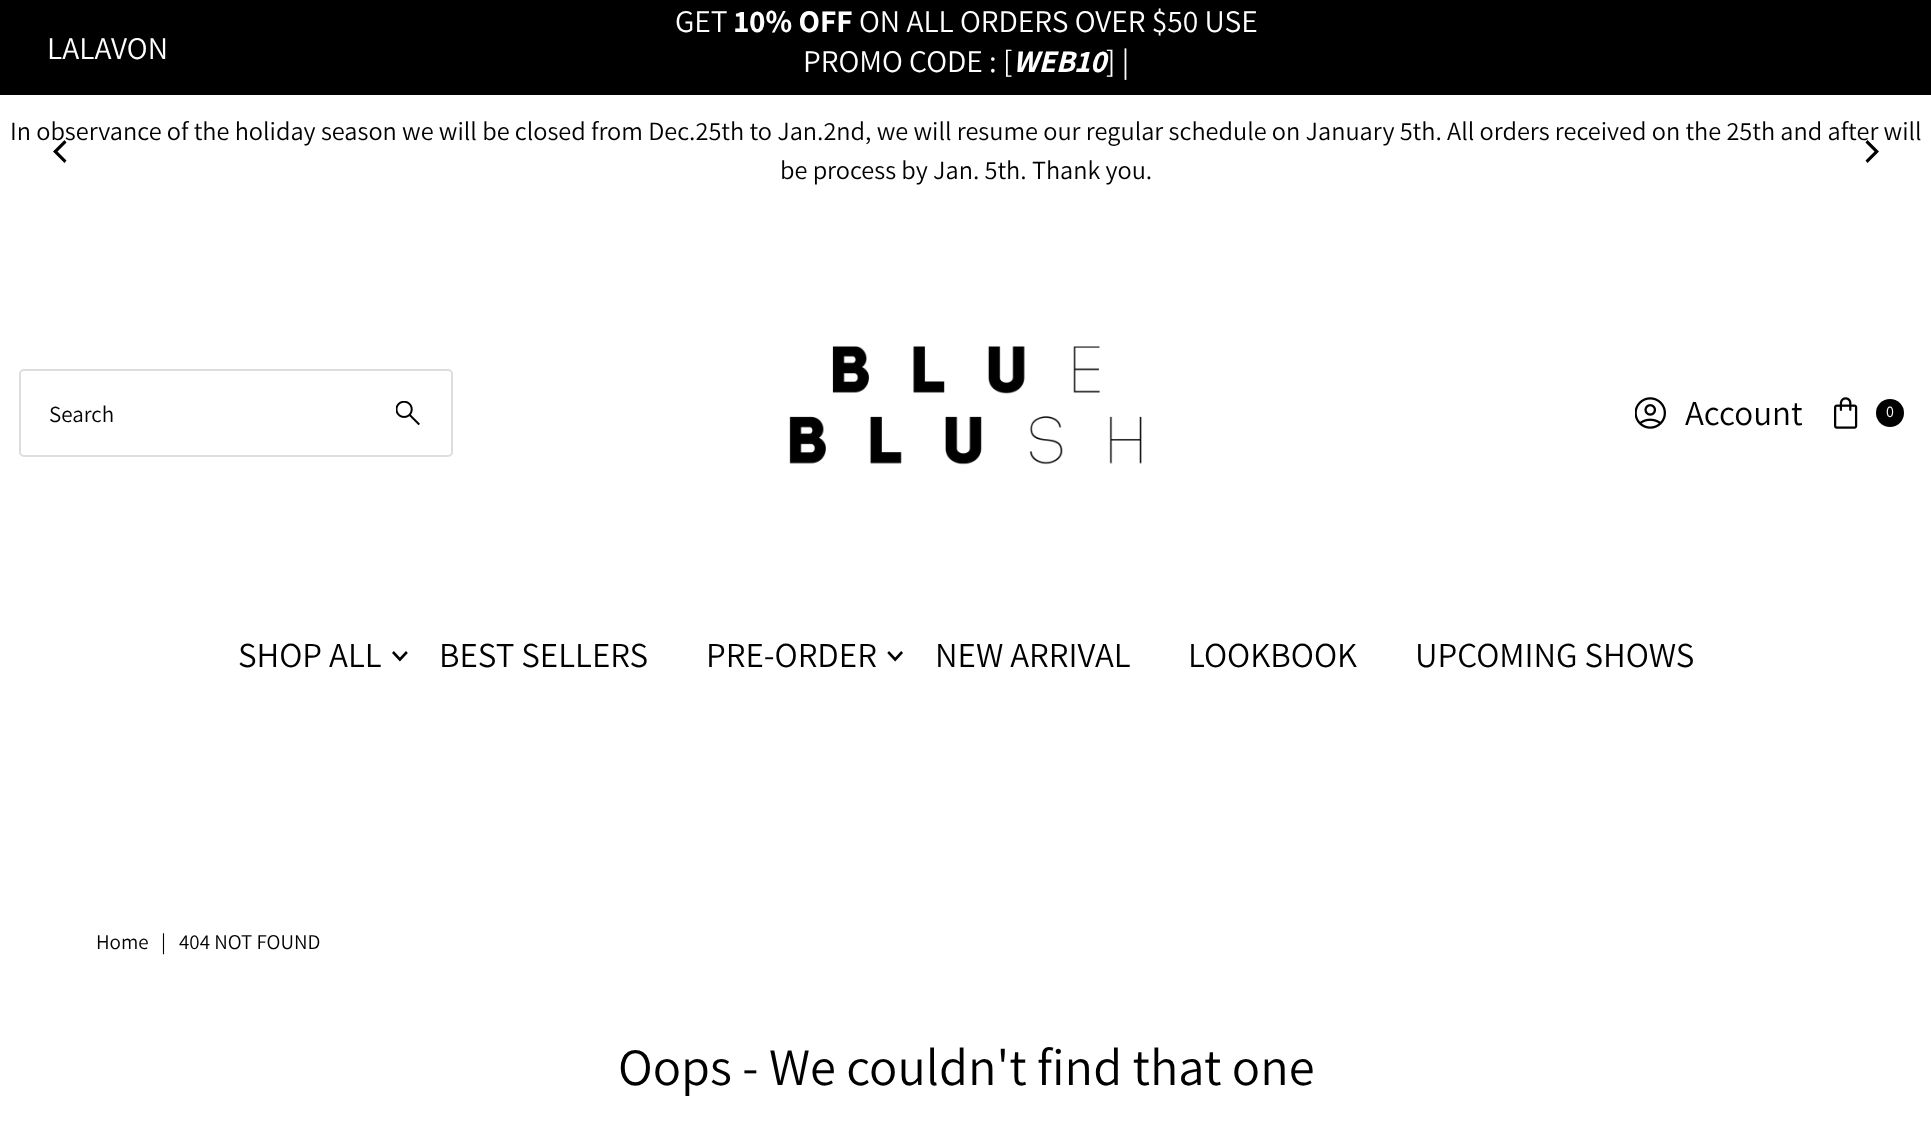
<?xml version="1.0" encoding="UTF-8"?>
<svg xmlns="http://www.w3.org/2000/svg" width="1931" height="1121">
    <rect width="100%" height="100%" fill="#FFFFFF"/>
    <rect x="0" y="0" width="1931" height="95" fill="#000000"/>
    <text x="47" y="59" font-family="Assistant" font-size="31.5" fill="#FFFFFF">LALAVON</text>
    <text x="675" y="32" font-family="Assistant" font-size="31.5" fill="#FFFFFF">GET</text>
    <text x="734" y="32" font-family="Assistant" font-size="31.5" font-weight="700" fill="#FFFFFF">10% OFF</text>
    <text x="859" y="32" font-family="Assistant" font-size="31.5" fill="#FFFFFF">ON ALL ORDERS OVER $50 USE</text>
    <text x="803" y="72" font-family="Assistant" font-size="31.5" fill="#FFFFFF">PROMO CODE : [</text>
    <text x="1013" y="72" font-family="Assistant" font-size="31.5" font-weight="700" font-style="italic" fill="#FFFFFF">WEB10</text>
    <text x="1106" y="72" font-family="Assistant" font-size="31.5" fill="#FFFFFF">] |</text>
    <text x="10" y="140" font-family="Assistant" font-size="26.25" fill="#000000">In observance of the holiday season we will be closed from Dec.25th to Jan.2nd, we will resume our regular schedule on January 5th. All orders received on the 25th and after will</text>
    <text x="780" y="179" font-family="Assistant" font-size="26.25" fill="#000000">be process by Jan. 5th. Thank you.</text>
    <path d="M 53 151.5 L 64.5 163 L 66.5 160.5 L 57.5 151.5 L 66.5 142.5 L 64.5 140 Z" fill="#000000"/>
    <path d="M 1879 151.5 L 1867.5 140 L 1865.5 142.5 L 1874.5 151.5 L 1865.5 160.5 L 1867.5 163 Z" fill="#000000"/>
    <rect x="20" y="370" width="432" height="86" rx="4" fill="none" stroke="#DDDDDD" stroke-width="2"/>
    <text x="49" y="422" font-family="Assistant" font-size="23" fill="#000000">Search</text>
    <image x="396" y="401" width="24" height="24" href="img_01.png"/>
    <image x="789" y="346" width="353" height="119" href="img_02.png"/>
    <image x="1635" y="397" width="31" height="32" href="img_03.png"/>
    <text x="1685" y="425" font-family="Assistant" font-size="35" fill="#000000">Account</text>
    <image x="1834" y="397" width="24" height="32" href="img_04.png"/>
    <circle cx="1890" cy="413" r="14" fill="#000000"/>
    <text x="1886" y="417" font-family="Assistant" font-size="16" fill="#FFFFFF">0</text>
    <text x="238" y="667" font-family="Assistant" font-size="35" fill="#000000">SHOP ALL</text>
    <image x="392" y="651" width="16" height="11" href="img_05.png"/>
    <text x="439" y="667" font-family="Assistant" font-size="35" fill="#000000">BEST SELLERS</text>
    <text x="706" y="667" font-family="Assistant" font-size="35" fill="#000000">PRE-ORDER</text>
    <image x="887" y="651" width="16" height="11" href="img_06.png"/>
    <text x="935" y="667" font-family="Assistant" font-size="35" fill="#000000">NEW ARRIVAL</text>
    <text x="1188" y="667" font-family="Assistant" font-size="35" fill="#000000">LOOKBOOK</text>
    <text x="1415" y="667" font-family="Assistant" font-size="35" fill="#000000">UPCOMING SHOWS</text>
    <text x="96" y="949" font-family="Assistant" font-size="21" fill="#000000">Home</text>
    <text x="161" y="949" font-family="Assistant" font-size="21" fill="#000000">|</text>
    <text x="179" y="949" font-family="Assistant" font-size="21" fill="#000000">404 NOT FOUND</text>
    <text x="618" y="1085" font-family="Assistant" font-size="52.5" fill="#000000">Oops - We couldn't find that one</text>
</svg>
